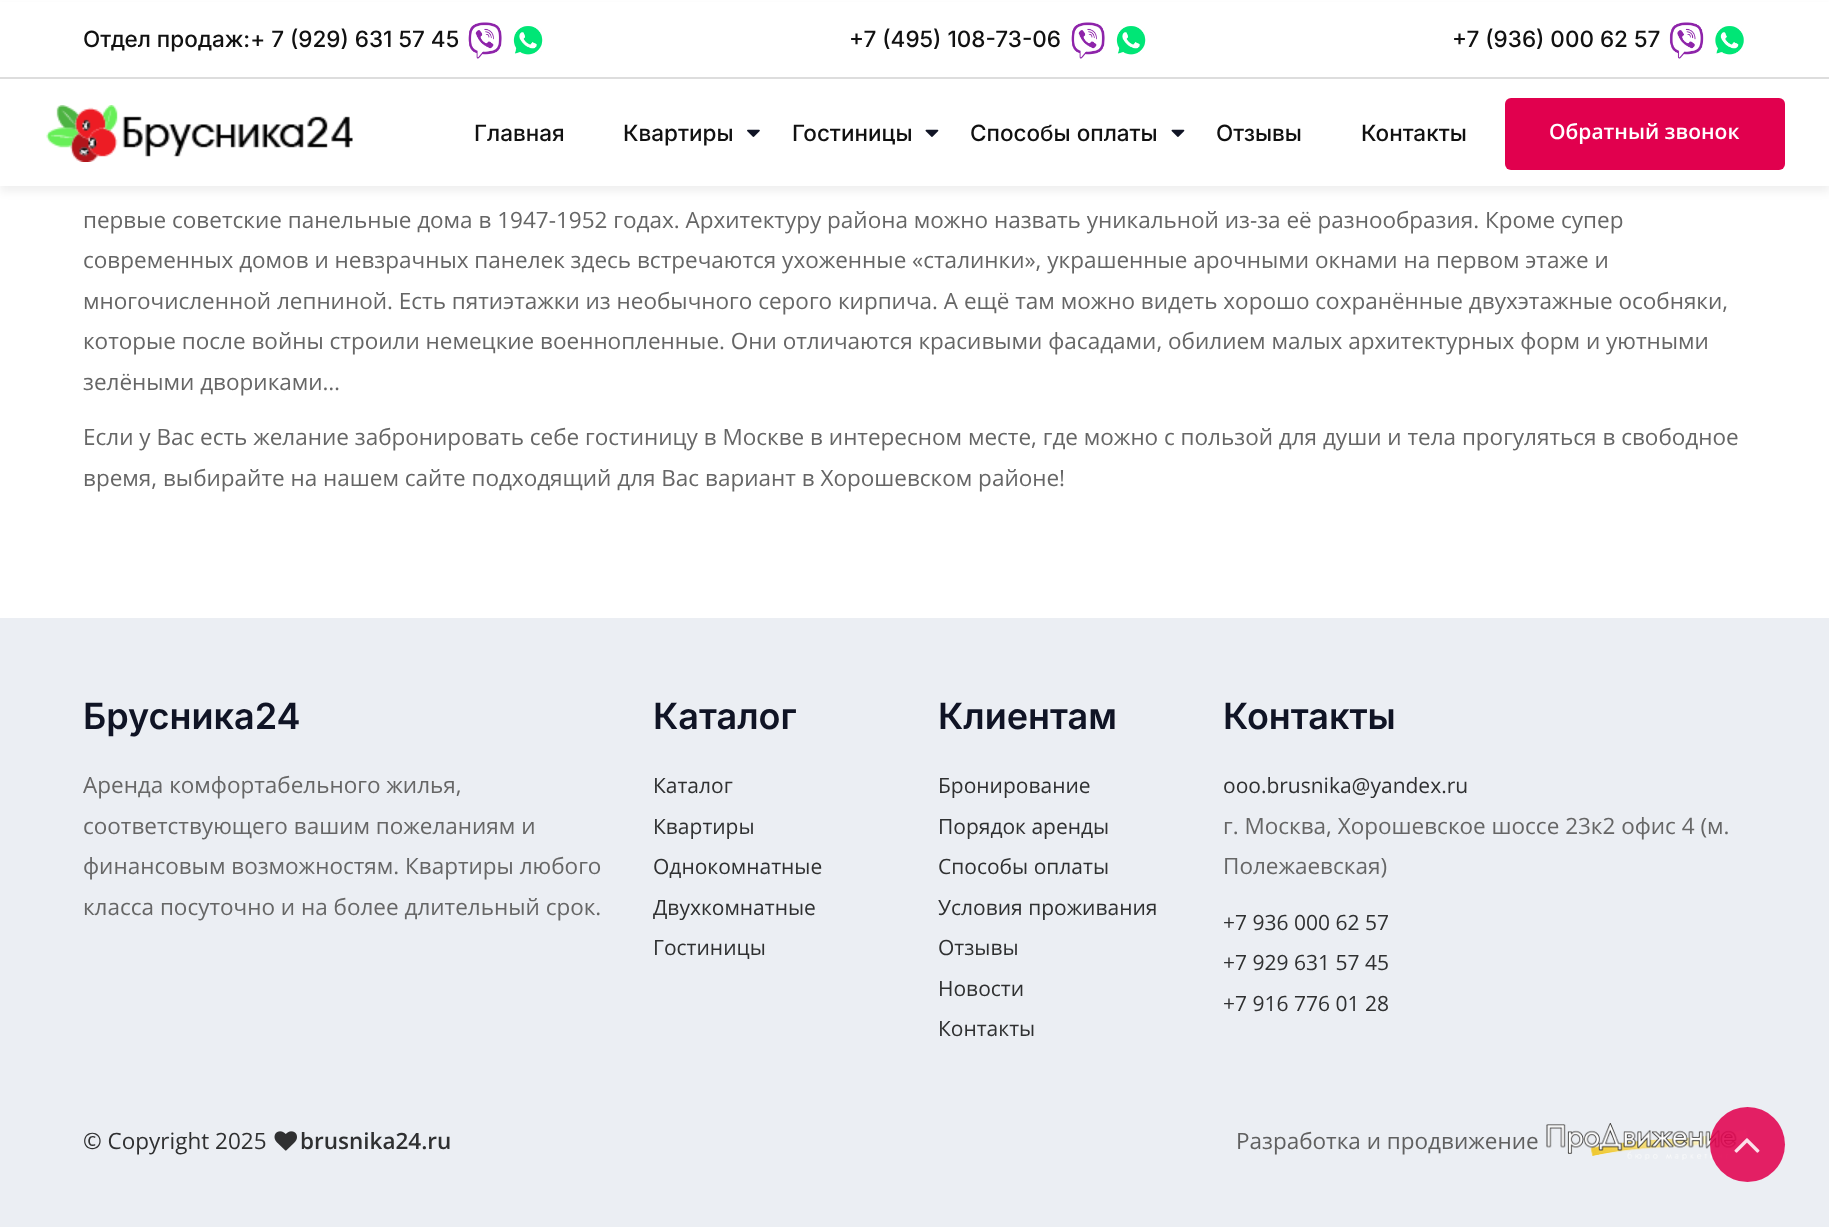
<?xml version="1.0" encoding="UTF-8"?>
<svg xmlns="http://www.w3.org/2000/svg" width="1829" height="1227">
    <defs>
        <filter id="blur1" x="-50%" y="-200%" width="200%" height="500%"><feGaussianBlur stdDeviation="4.5"/></filter>
    </defs>
    <rect width="100%" height="100%" fill="#FFFFFF"/>
    <rect x="0" y="6" width="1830" height="186" fill="#0C002E" fill-opacity="0.06" filter="url(#blur1)"/>
    <rect x="0" y="2" width="1829" height="184" fill="#FFFFFF"/>
    <rect x="0" y="77" width="1829" height="2" fill="#DDDDDD"/>
    <text x="83" y="47" font-family="Inter" font-size="22.5" font-weight="500" fill="#111111">Отдел продаж:+ 7 (929) 631 57 45</text>
    <image x="468" y="22" width="34" height="37" href="img_01.png"/>
    <image x="513" y="26" width="30" height="29" href="img_02.png"/>
    <text x="849" y="47" font-family="Inter" font-size="22.5" font-weight="500" fill="#111111">+7 (495) 108-73-06</text>
    <image x="1071" y="22" width="34" height="37" href="img_01.png"/>
    <image x="1116" y="26" width="30" height="29" href="img_02.png"/>
    <text x="1452" y="47" font-family="Inter" font-size="22.5" font-weight="500" fill="#111111">+7 (936) 000 62 57</text>
    <image x="1669" y="22" width="35" height="37" href="img_03.png"/>
    <image x="1715" y="26" width="29" height="29" href="img_04.png"/>
    <image x="46" y="105" width="307" height="57" href="img_05.png"/>
    <text x="474" y="141" font-family="Inter" font-size="22.5" font-weight="500" fill="#111111">Главная</text>
    <text x="623" y="141" font-family="Inter" font-size="22.5" font-weight="500" fill="#111111">Квартиры</text>
    <image x="747" y="129" width="13" height="8" href="img_06.png"/>
    <text x="792" y="141" font-family="Inter" font-size="22.5" font-weight="500" fill="#111111">Гостиницы</text>
    <image x="925" y="129" width="14" height="8" href="img_07.png"/>
    <text x="970" y="141" font-family="Inter" font-size="22.5" font-weight="500" fill="#111111">Способы оплаты</text>
    <image x="1171" y="129" width="14" height="8" href="img_07.png"/>
    <text x="1216" y="141" font-family="Inter" font-size="22.5" font-weight="500" fill="#111111">Отзывы</text>
    <text x="1361" y="141" font-family="Inter" font-size="22.5" font-weight="500" fill="#111111">Контакты</text>
    <rect x="1505" y="98" width="280" height="72" rx="6" fill="#E1004E"/>
    <text x="1549" y="139" font-family="Open Sans" font-size="21" font-weight="600" fill="#FFFFFF">Обратный звонок</text>
    <text font-family="Open Sans" font-size="22.5" fill="#666666">
        <tspan x="83" y="228">первые советские панельные дома в 1947-1952 годах. Архитектуру района можно назвать уникальной из-за её разнообразия. Кроме супер</tspan>
        <tspan x="83" y="268">современных домов и невзрачных панелек здесь встречаются ухоженные «сталинки», украшенные арочными окнами на первом этаже и</tspan>
        <tspan x="83" y="309">многочисленной лепниной. Есть пятиэтажки из необычного серого кирпича. А ещё там можно видеть хорошо сохранённые двухэтажные особняки,</tspan>
        <tspan x="83" y="349">которые после войны строили немецкие военнопленные. Они отличаются красивыми фасадами, обилием малых архитектурных форм и уютными</tspan>
        <tspan x="83" y="390">зелёными двориками…</tspan>
    </text>
    <text font-family="Open Sans" font-size="22.5" fill="#666666">
        <tspan x="83" y="445">Если у Вас есть желание забронировать себе гостиницу в Москве в интересном месте, где можно с пользой для души и тела прогуляться в свободное</tspan>
        <tspan x="83" y="486">время, выбирайте на нашем сайте подходящий для Вас вариант в Хорошевском районе!</tspan>
    </text>
    <rect x="0" y="618" width="1829" height="609" fill="#EBEEF3"/>
    <text x="83" y="729" font-family="Inter" font-size="36" font-weight="600" fill="#101425">Брусника24</text>
    <text font-family="Open Sans" font-size="22.5" fill="#666666">
        <tspan x="83" y="793">Аренда комфортабельного жилья,</tspan>
        <tspan x="83" y="834">соответствующего вашим пожеланиям и</tspan>
        <tspan x="83" y="874">финансовым возможностям. Квартиры любого</tspan>
        <tspan x="83" y="915">класса посуточно и на более длительный срок.</tspan>
    </text>
    <text x="653" y="729" font-family="Inter" font-size="36" font-weight="600" fill="#101425">Каталог</text>
    <text font-family="Open Sans" font-size="21" fill="#2F3031">
        <tspan x="653" y="793">Каталог</tspan>
        <tspan x="653" y="834">Квартиры</tspan>
        <tspan x="653" y="874">Однокомнатные</tspan>
        <tspan x="653" y="915">Двухкомнатные</tspan>
        <tspan x="653" y="955">Гостиницы</tspan>
    </text>
    <text x="938" y="729" font-family="Inter" font-size="36" font-weight="600" fill="#101425">Клиентам</text>
    <text font-family="Open Sans" font-size="21" fill="#2F3031">
        <tspan x="938" y="793">Бронирование</tspan>
        <tspan x="938" y="834">Порядок аренды</tspan>
        <tspan x="938" y="874">Способы оплаты</tspan>
        <tspan x="938" y="915">Условия проживания</tspan>
        <tspan x="938" y="955">Отзывы</tspan>
        <tspan x="938" y="996">Новости</tspan>
        <tspan x="938" y="1036">Контакты</tspan>
    </text>
    <text x="1223" y="729" font-family="Inter" font-size="36" font-weight="600" fill="#101425">Контакты</text>
    <text x="1223" y="793" font-family="Open Sans" font-size="21" fill="#2F3031">ooo.brusnika@yandex.ru</text>
    <text font-family="Open Sans" font-size="22.5" fill="#666666">
        <tspan x="1223" y="834">г. Москва, Хорошевское шоссе 23к2 офис 4 (м.</tspan>
        <tspan x="1223" y="874">Полежаевская)</tspan>
    </text>
    <text font-family="Open Sans" font-size="21" fill="#2F3031">
        <tspan x="1223" y="930">+7 936 000 62 57</tspan>
        <tspan x="1223" y="970">+7 929 631 57 45</tspan>
        <tspan x="1223" y="1011">+7 916 776 01 28</tspan>
    </text>
    <text x="83" y="1149" font-family="Open Sans" font-size="22.5" fill="#2F3031">© Copyright 2025</text>
    <image x="274" y="1131" width="23" height="20" href="img_08.png"/>
    <text x="300" y="1149" font-family="Open Sans" font-size="22.5" font-weight="600" fill="#2F3031">brusnika24.ru</text>
    <text x="1236" y="1149" font-family="Open Sans" font-size="22.5" fill="#606060">Разработка и продвижение</text>
    <image x="1546" y="1123" width="202" height="37" href="img_09.png"/>
    <circle cx="1747.5" cy="1144.5" r="37.5" fill="#E1004E" fill-opacity="0.87"/>
    <image x="1734" y="1138" width="26" height="15" href="img_10.png"/>
</svg>
